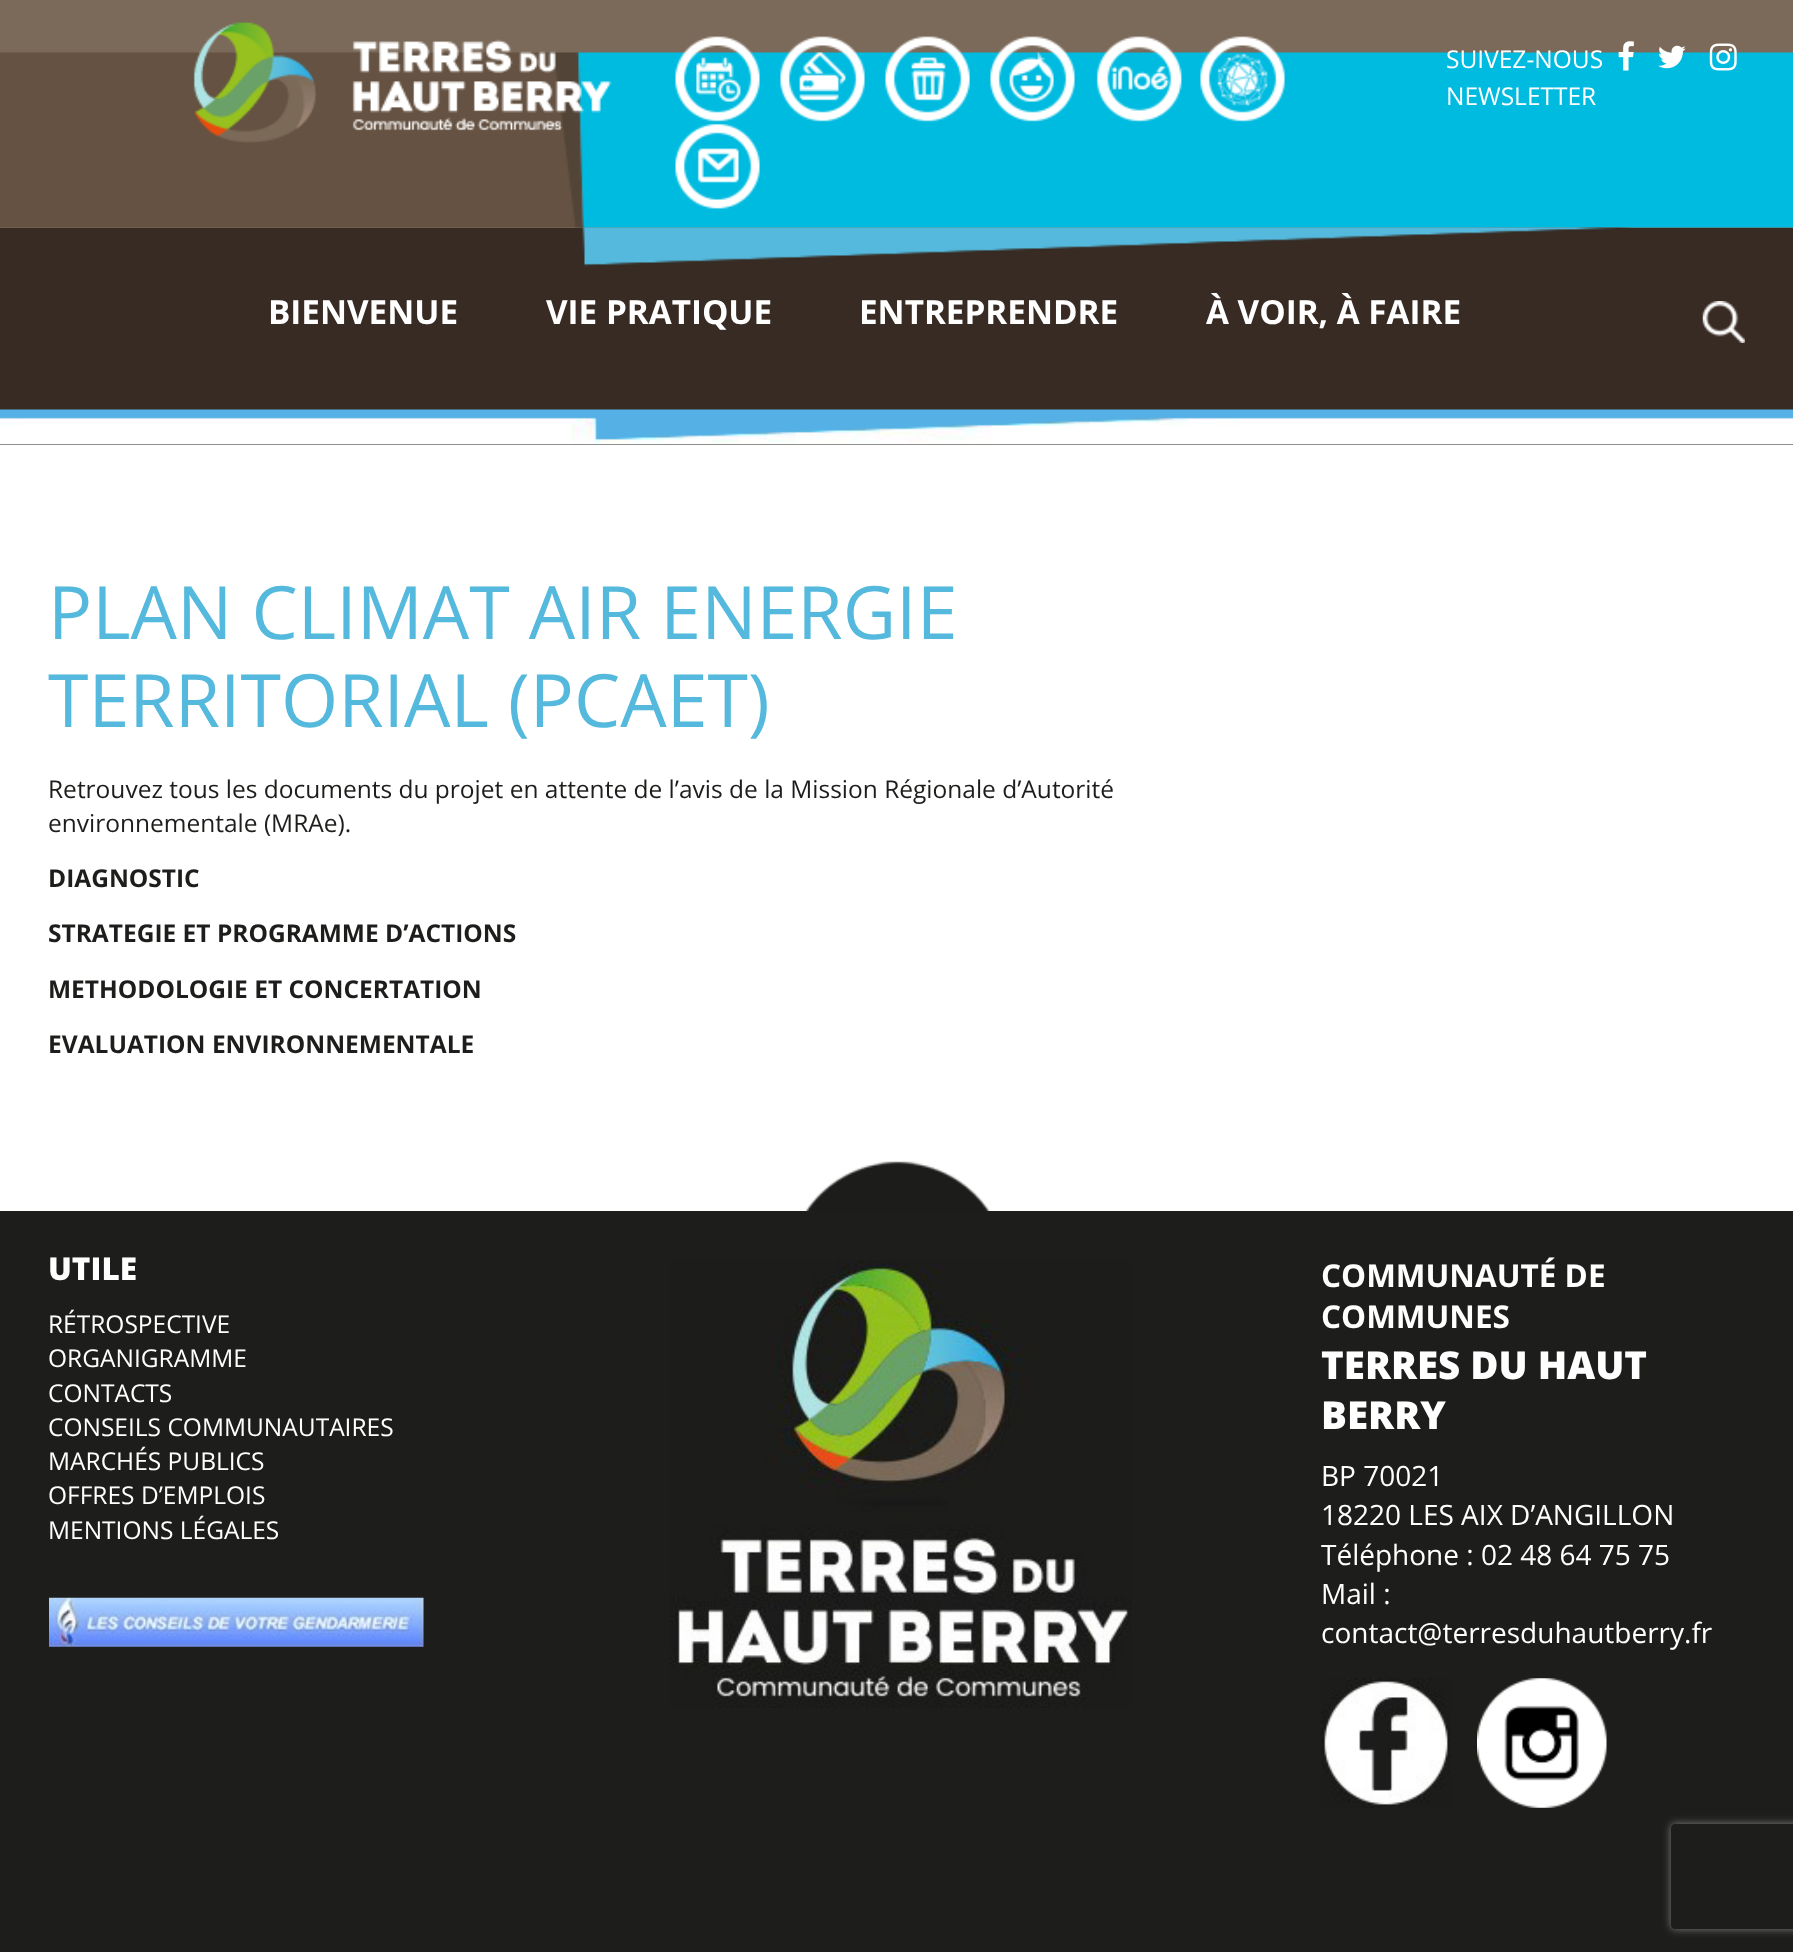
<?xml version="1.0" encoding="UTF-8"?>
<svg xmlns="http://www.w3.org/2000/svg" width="1793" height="1952">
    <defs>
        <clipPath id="clip1"><path d="M 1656 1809 H 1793 V 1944 H 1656 Z M 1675 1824 H 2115 C 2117 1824 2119 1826 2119 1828 V 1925 C 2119 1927 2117 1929 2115 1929 H 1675 C 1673 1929 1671 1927 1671 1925 V 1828 C 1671 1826 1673 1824 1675 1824 Z" clip-rule="evenodd"/></clipPath>
        <filter id="blur1" x="-50%" y="-200%" width="200%" height="500%"><feGaussianBlur stdDeviation="4.5"/></filter>
    </defs>
    <rect width="100%" height="100%" fill="#1D1D1B"/>
    <rect x="0" y="0" width="1793" height="228" fill="#7B6A5A"/>
    <image x="0" y="52" width="1793" height="176" href="img_01.png"/>
    <image x="193" y="22" width="419" height="121" href="img_02.png"/>
    <image x="675" y="36" width="85" height="86" href="img_03.png"/>
    <image x="780" y="36" width="85" height="86" href="img_04.png"/>
    <image x="885" y="36" width="85" height="86" href="img_05.png"/>
    <image x="990" y="36" width="85" height="86" href="img_06.png"/>
    <image x="1096" y="36" width="86" height="86" href="img_07.png"/>
    <image x="1200" y="36" width="85" height="86" href="img_08.png"/>
    <image x="675" y="123" width="85" height="86" href="img_09.png"/>
    <text x="1446" y="68" font-family="Open Sans" font-size="24.5" fill="#FFFFFF">SUIVEZ-NOUS</text>
    <image x="1618" y="41" width="16" height="30" href="img_10.png"/>
    <image x="1658" y="45" width="28" height="24" href="img_11.png"/>
    <image x="1709" y="43" width="28" height="28" href="img_12.png"/>
    <text x="1446" y="105" font-family="Open Sans" font-size="24.5" fill="#FFFFFF">NEWSLETTER</text>
    <rect x="0" y="228" width="1793" height="182" fill="#382B23"/>
    <image x="580" y="227" width="1050" height="40" href="img_13.png"/>
    <text x="268" y="324" font-family="Open Sans" font-size="33.25" font-weight="700" fill="#FFFFFF">BIENVENUE</text>
    <text x="546" y="324" font-family="Open Sans" font-size="33.25" font-weight="700" fill="#FFFFFF">VIE PRATIQUE</text>
    <text x="859" y="324" font-family="Open Sans" font-size="33.25" font-weight="700" fill="#FFFFFF">ENTREPRENDRE</text>
    <text x="1206" y="324" font-family="Open Sans" font-size="33.25" font-weight="700" fill="#FFFFFF">À VOIR, À FAIRE</text>
    <image x="1702" y="301" width="43" height="42" href="img_14.png"/>
    <image x="0" y="409" width="1793" height="36" href="img_15.png"/>
    <rect x="0" y="445" width="1793" height="766" fill="#FFFFFF"/>
    <image x="805" y="1161" width="185" height="50" href="img_16.png"/>
    <text font-family="Open Sans" font-size="73.5" fill="#54B9DC">
        <tspan x="48" y="639">PLAN CLIMAT AIR ENERGIE</tspan>
        <tspan x="48" y="727">TERRITORIAL (PCAET)</tspan>
    </text>
    <text font-family="Open Sans" font-size="24.5" fill="#1D1D1B">
        <tspan x="48" y="798">Retrouvez tous les documents du projet en attente de l’avis de la Mission Régionale d’Autorité</tspan>
        <tspan x="48" y="832">environnementale (MRAe).</tspan>
    </text>
    <text x="48" y="887" font-family="Open Sans" font-size="24.5" font-weight="700" fill="#1D1D1B">DIAGNOSTIC</text>
    <text x="48" y="942" font-family="Open Sans" font-size="24.5" font-weight="700" fill="#1D1D1B">STRATEGIE ET PROGRAMME D’ACTIONS</text>
    <text x="48" y="998" font-family="Open Sans" font-size="24.5" font-weight="700" fill="#1D1D1B">METHODOLOGIE ET CONCERTATION</text>
    <text x="48" y="1053" font-family="Open Sans" font-size="24.5" font-weight="700" fill="#1D1D1B">EVALUATION ENVIRONNEMENTALE</text>
    <text x="48" y="1280" font-family="Open Sans" font-size="31.5" font-weight="800" fill="#FFFFFF">UTILE</text>
    <text font-family="Open Sans" font-size="24.5" fill="#FFFFFF">
        <tspan x="48" y="1333">RÉTROSPECTIVE</tspan>
        <tspan x="48" y="1367">ORGANIGRAMME</tspan>
        <tspan x="48" y="1402">CONTACTS</tspan>
        <tspan x="48" y="1436">CONSEILS COMMUNAUTAIRES</tspan>
        <tspan x="48" y="1470">MARCHÉS PUBLICS</tspan>
        <tspan x="48" y="1504">OFFRES D’EMPLOIS</tspan>
        <tspan x="48" y="1539">MENTIONS LÉGALES</tspan>
    </text>
    <image x="49" y="1597" width="375" height="50" href="img_17.png"/>
    <image x="670" y="1260" width="462" height="448" href="img_18.png"/>
    <text font-family="Open Sans" font-size="31.5" font-weight="700" fill="#FFFFFF">
        <tspan x="1321" y="1287">COMMUNAUTÉ DE</tspan>
        <tspan x="1321" y="1328">COMMUNES</tspan>
    </text>
    <text font-family="Open Sans" font-size="38.5" font-weight="800" fill="#FFFFFF">
        <tspan x="1321" y="1379">TERRES DU HAUT</tspan>
        <tspan x="1321" y="1429">BERRY</tspan>
    </text>
    <text font-family="Open Sans" font-size="28" fill="#FFFFFF">
        <tspan x="1321" y="1486">BP 70021</tspan>
        <tspan x="1321" y="1525">18220 LES AIX D’ANGILLON</tspan>
        <tspan x="1321" y="1565">Téléphone : 02 48 64 75 75</tspan>
        <tspan x="1321" y="1604">Mail :</tspan>
        <tspan x="1321" y="1643">contact@terresduhautberry.fr</tspan>
    </text>
    <image x="1321" y="1678" width="130" height="130" href="img_19.png"/>
    <image x="1477" y="1678" width="130" height="130" href="img_20.png"/>
    <g clip-path="url(#clip1)">
        <rect x="1671" y="1824" width="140" height="105" rx="4" fill="#808080" filter="url(#blur1)"/>
    </g>
</svg>
